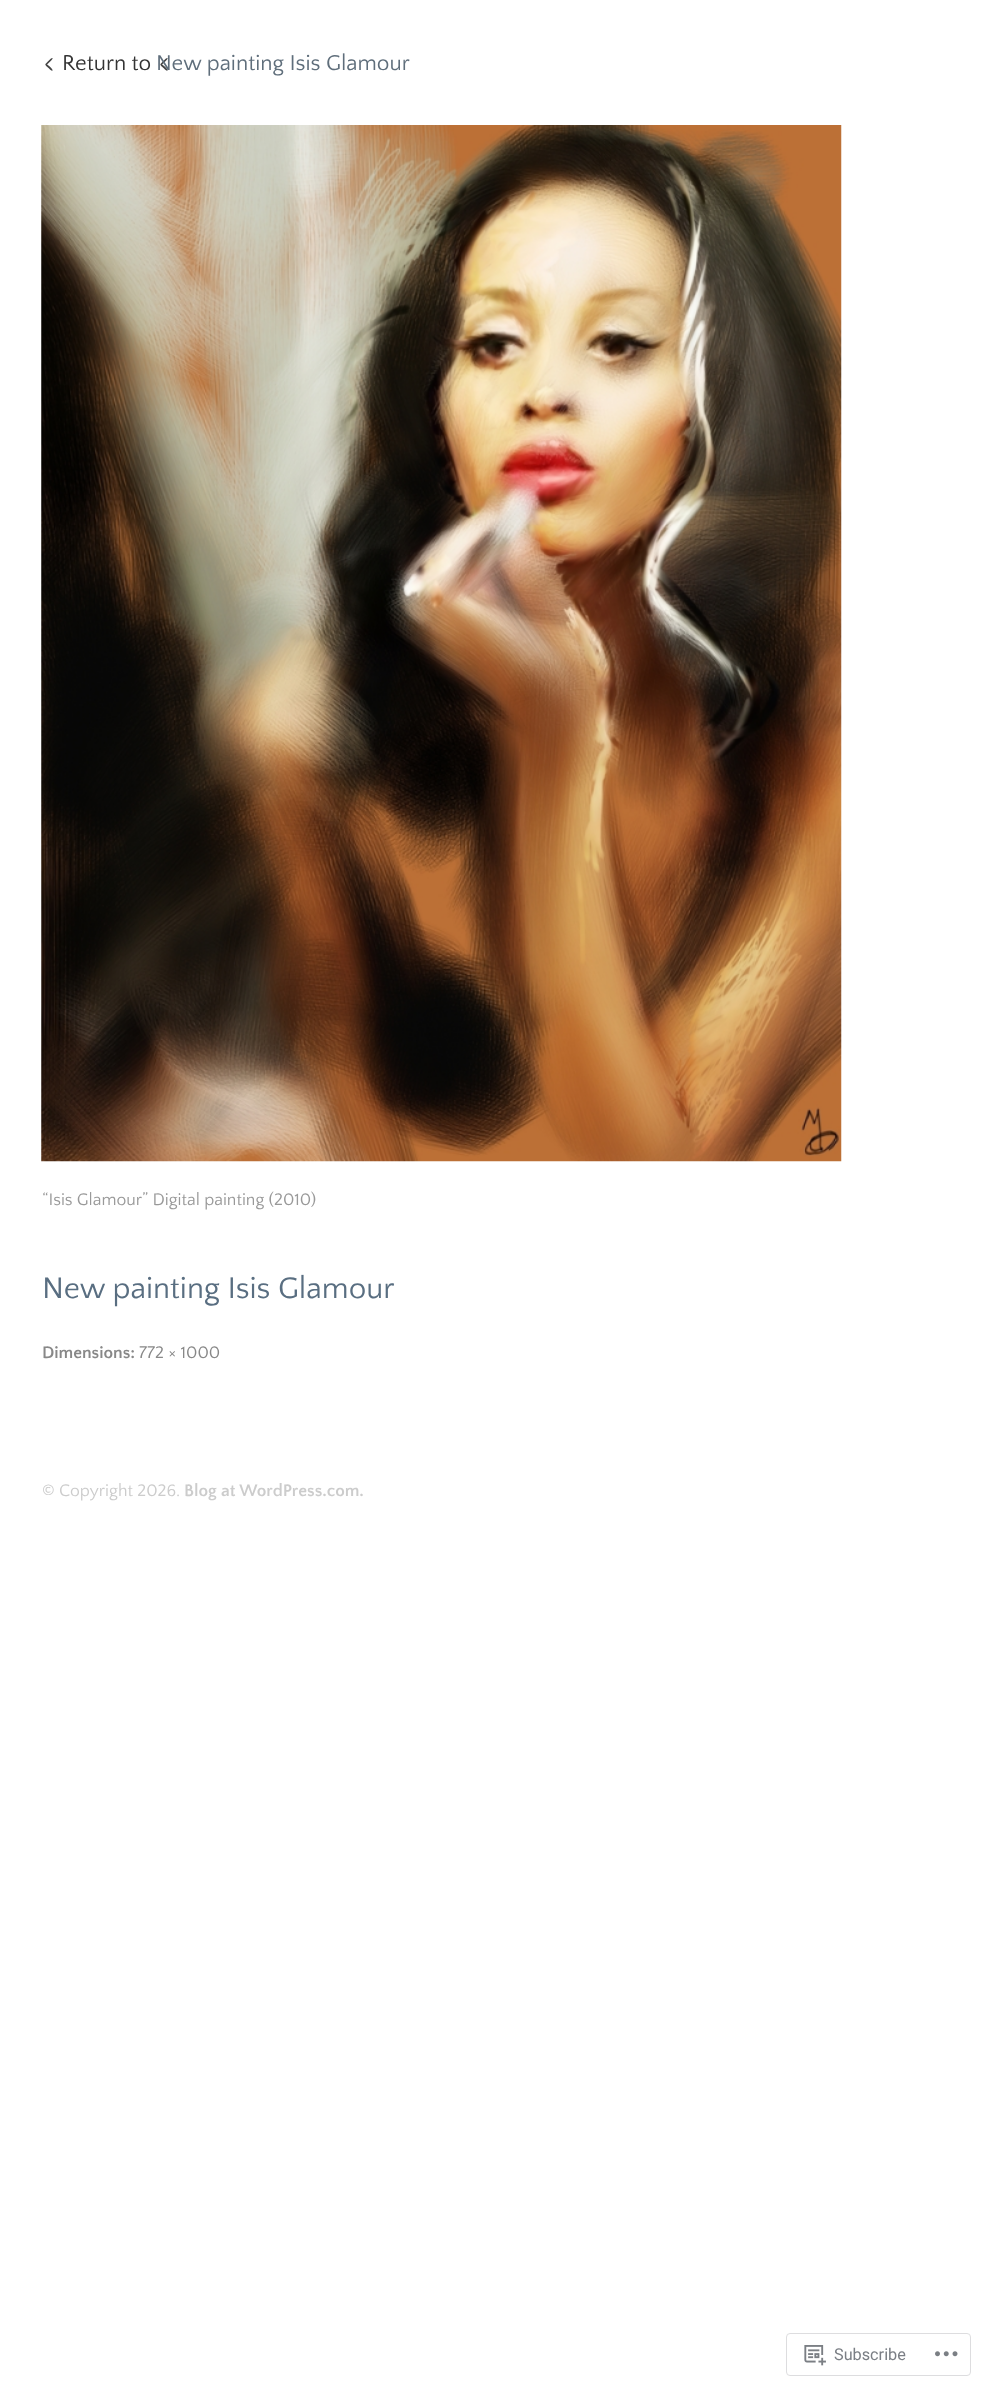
<?xml version="1.0" encoding="UTF-8"?>
<svg xmlns="http://www.w3.org/2000/svg" width="983" height="2388">
    <rect width="100%" height="100%" fill="#FFFFFF"/>
    <text x="62" y="70" font-family="Quattrocento Sans" font-size="22.5" fill="#333333">Return to</text>
    <path d="M 45.5 64 C 44.5 65 48 67.5 48.5 68 C 49 68.5 51.5 71.5 52.5 70.5 C 53.5 69.5 48 65 47 64.5 C 48 63.5 53.5 59 52.5 58 C 51.5 57 46.5 63 45.5 64 Z" fill="#444444" fill-rule="evenodd"/>
    <path d="M 160.5 64 C 159.5 65 163 67.5 163.5 68 C 164 68.5 166.5 71.5 167.5 70.5 C 168.5 69.5 163 65 162 64.5 C 163 63.5 168.5 59 167.5 58 C 166.5 57 161.5 63 160.5 64 Z" fill="#444444" fill-rule="evenodd"/>
    <text x="156" y="70" font-family="Quattrocento Sans" font-size="22.5" fill="#5F6E7B">New painting Isis Glamour</text>
    <image x="41" y="125" width="801" height="1037" href="img_01.png"/>
    <text x="42" y="1205" font-family="Quattrocento Sans" font-size="17.5" fill="#999999">“Isis Glamour” Digital painting (2010)</text>
    <text x="42" y="1298" font-family="Quattrocento Sans" font-size="31.25" fill="#596E81">New painting Isis Glamour</text>
    <text x="42" y="1358" font-family="Quattrocento Sans" font-size="17.5" font-weight="700" fill="#888888">Dimensions:</text>
    <text x="139" y="1358" font-family="Quattrocento Sans" font-size="17.5" fill="#888888">772 × 1000</text>
    <text x="42" y="1496" font-family="Quattrocento Sans" font-size="17.5" fill="#CCCCCC">© Copyright 2026.</text>
    <text x="184" y="1496" font-family="Quattrocento Sans" font-size="17.5" font-weight="700" fill="#CCCCCC">Blog at WordPress.com.</text>
    <rect x="786.5" y="2333.5" width="184" height="42" rx="3.5" fill="none" stroke="#DDDDDF"/>
    <image x="804" y="2345" width="22" height="21" href="img_02.png"/>
    <text x="834" y="2360" font-family="Roboto" font-size="16.25" fill="#7B7F85">Subscribe</text>
    <image x="935" y="2351" width="23" height="6" href="img_03.png"/>
</svg>
